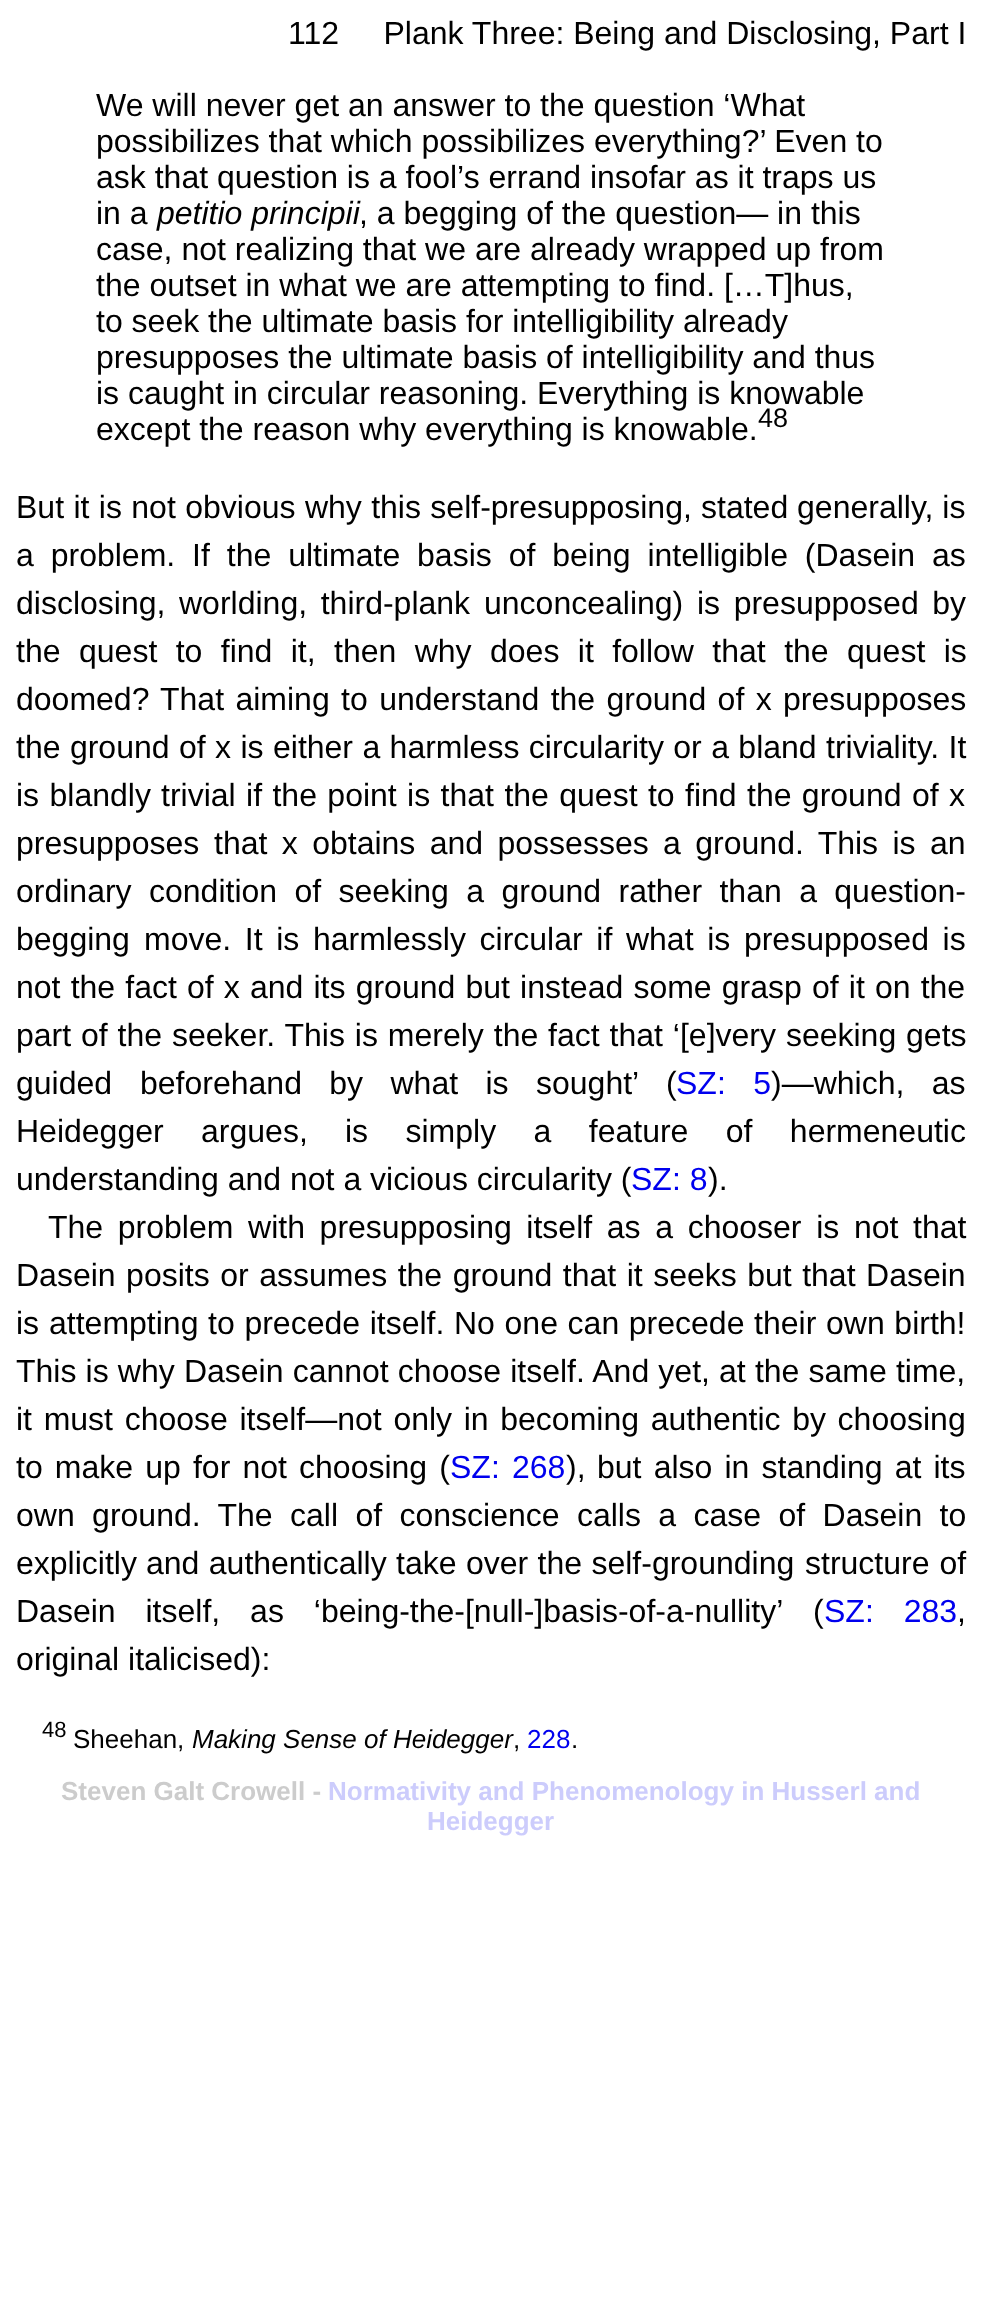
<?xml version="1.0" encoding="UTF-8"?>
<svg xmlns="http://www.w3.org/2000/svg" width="982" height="2317">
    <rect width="100%" height="100%" fill="#FFFFFF"/>
    <text x="288" y="44" font-family="Liberation Sans" font-size="32" fill="#000000" xml:space="preserve">112     Plank Three: Being and Disclosing, Part I</text>
    <text font-family="Liberation Sans" font-size="32" fill="#000000">
        <tspan x="96" y="116">We will never get an answer to the question ‘What</tspan>
        <tspan x="96" y="152">possibilizes that which possibilizes everything?’ Even to</tspan>
        <tspan x="96" y="188">ask that question is a fool’s errand insofar as it traps us</tspan>
        <tspan x="96" y="224">in a</tspan>
    </text>
    <text x="157" y="224" font-family="Liberation Sans" font-size="32" font-style="italic" fill="#000000">petitio principii</text>
    <text x="359" y="224" font-family="Liberation Sans" font-size="32" fill="#000000">, a begging of the question— in this</text>
    <text font-family="Liberation Sans" font-size="32" fill="#000000">
        <tspan x="96" y="260">case, not realizing that we are already wrapped up from</tspan>
        <tspan x="96" y="296">the outset in what we are attempting to find. […T]hus,</tspan>
        <tspan x="96" y="332">to seek the ultimate basis for intelligibility already</tspan>
        <tspan x="96" y="368">presupposes the ultimate basis of intelligibility and thus</tspan>
        <tspan x="96" y="404">is caught in circular reasoning. Everything is knowable</tspan>
        <tspan x="96" y="440">except the reason why everything is knowable.</tspan>
    </text>
    <text x="758" y="427" font-family="Liberation Sans" font-size="27" fill="#000000">48</text>
    <text x="16" y="518" word-spacing="0.5" font-family="Liberation Sans" font-size="32" fill="#000000">But it is not obvious why this self-presupposing,</text>
    <text x="701" y="518" font-family="Liberation Sans" font-size="32" fill="#000000">stated generally, is</text>
    <text font-family="Liberation Sans" font-size="32" fill="#000000">
        <tspan x="16" y="566" word-spacing="8">a problem. If the ultimate basis of being intelligible (Dasein as</tspan>
        <tspan x="16" y="614">disclosing,</tspan>
    </text>
    <text x="179" y="614" word-spacing="4.75" font-family="Liberation Sans" font-size="32" fill="#000000">worlding, third-plank</text>
    <text x="484" y="614" word-spacing="4.75" font-family="Liberation Sans" font-size="32" fill="#000000">unconcealing) is presupposed by</text>
    <text x="16" y="662" font-family="Liberation Sans" font-size="32" fill="#000000">the</text>
    <text x="79" y="662" word-spacing="9.5" font-family="Liberation Sans" font-size="32" fill="#000000">quest to find it, then why does it follow that the quest is</text>
    <text x="16" y="710" font-family="Liberation Sans" font-size="32" fill="#000000">doomed?</text>
    <text x="160" y="710" word-spacing="2.5" font-family="Liberation Sans" font-size="32" fill="#000000">That aiming to understand the ground of x presupposes</text>
    <text x="16" y="758" word-spacing="0.5" font-family="Liberation Sans" font-size="32" fill="#000000">the ground</text>
    <text x="179" y="758" word-spacing="0.5" font-family="Liberation Sans" font-size="32" fill="#000000">of x is either a harmless circularity or a bland triviality. It</text>
    <text x="16" y="806" word-spacing="1.5" font-family="Liberation Sans" font-size="32" fill="#000000">is blandly</text>
    <text x="161" y="806" word-spacing="1.5" font-family="Liberation Sans" font-size="32" fill="#000000">trivial if the point is that the quest to find the ground of x</text>
    <text x="16" y="854" font-family="Liberation Sans" font-size="32" fill="#000000">presupposes</text>
    <text x="214" y="854" word-spacing="5.5" font-family="Liberation Sans" font-size="32" fill="#000000">that x obtains and possesses a ground. This is an</text>
    <text x="16" y="902" font-family="Liberation Sans" font-size="32" fill="#000000">ordinary</text>
    <text x="149" y="902" word-spacing="8.5" font-family="Liberation Sans" font-size="32" fill="#000000">condition of seeking a ground rather than a question-</text>
    <text x="16" y="950" font-family="Liberation Sans" font-size="32" fill="#000000">begging</text>
    <text x="144" y="950" word-spacing="4.75" font-family="Liberation Sans" font-size="32" fill="#000000">move. It is harmlessly circular if what is presupposed is</text>
    <text x="16" y="998" word-spacing="1.25" font-family="Liberation Sans" font-size="32" fill="#000000">not the fact</text>
    <text x="187" y="998" word-spacing="1.25" font-family="Liberation Sans" font-size="32" fill="#000000">of x and its ground but instead some grasp of it on the</text>
    <text x="16" y="1046" word-spacing="1" font-family="Liberation Sans" font-size="32" fill="#000000">part of the</text>
    <text x="172" y="1046" word-spacing="1" font-family="Liberation Sans" font-size="32" fill="#000000">seeker. This is merely the fact that ‘[e]very seeking gets</text>
    <text x="16" y="1094" font-family="Liberation Sans" font-size="32" fill="#000000">guided</text>
    <text x="140" y="1094" word-spacing="18.5" font-family="Liberation Sans" font-size="32" fill="#000000">beforehand by what is sought’</text>
    <text x="666" y="1094" font-family="Liberation Sans" font-size="32" fill="#000000">(</text>
    <text x="676" y="1094" word-spacing="18.5" font-family="Liberation Sans" font-size="32" fill="#0000EE">SZ: 5</text>
    <text x="771" y="1094" word-spacing="18.5" font-family="Liberation Sans" font-size="32" fill="#000000">)—which, as</text>
    <text x="16" y="1142" word-spacing="28.5" font-family="Liberation Sans" font-size="32" fill="#000000">Heidegger argues,</text>
    <text x="345" y="1142" word-spacing="28.5" font-family="Liberation Sans" font-size="32" fill="#000000">is simply a feature of hermeneutic</text>
    <text x="16" y="1190" font-family="Liberation Sans" font-size="32" fill="#000000">understanding and not a vicious circularity (</text>
    <text x="631" y="1190" font-family="Liberation Sans" font-size="32" fill="#0000EE">SZ: 8</text>
    <text x="708" y="1190" font-family="Liberation Sans" font-size="32" fill="#000000">).</text>
    <text x="48" y="1238" word-spacing="5.75" font-family="Liberation Sans" font-size="32" fill="#000000">The problem with presupposing itself as a chooser is not that</text>
    <text font-family="Liberation Sans" font-size="32" fill="#000000">
        <tspan x="16" y="1286" word-spacing="1.6">Dasein posits or assumes the ground that it seeks but that Dasein</tspan>
        <tspan x="16" y="1334">is</tspan>
    </text>
    <text x="49" y="1334" word-spacing="0.75" font-family="Liberation Sans" font-size="32" fill="#000000">attempting to precede itself. No one can precede their own birth!</text>
    <text font-family="Liberation Sans" font-size="32" fill="#000000">
        <tspan x="16" y="1382" word-spacing="0.25">This is why Dasein cannot choose itself. And yet, at the same time,</tspan>
        <tspan x="16" y="1430" word-spacing="2.75">it must choose itself—not only in becoming authentic by choosing</tspan>
        <tspan x="16" y="1478" word-spacing="3.25">to make up for not choosing (</tspan>
    </text>
    <text x="450" y="1478" word-spacing="3.25" font-family="Liberation Sans" font-size="32" fill="#0000EE">SZ: 268</text>
    <text x="566" y="1478" font-family="Liberation Sans" font-size="32" fill="#000000">),</text>
    <text x="597" y="1478" word-spacing="3.25" font-family="Liberation Sans" font-size="32" fill="#000000">but also in standing at its</text>
    <text font-family="Liberation Sans" font-size="32" fill="#000000">
        <tspan x="16" y="1526" word-spacing="8.5">own ground. The call of conscience calls a case of Dasein to</tspan>
        <tspan x="16" y="1574">explicitly</tspan>
    </text>
    <text x="146" y="1574" word-spacing="0.5" font-family="Liberation Sans" font-size="32" fill="#000000">and authentically take over the self-grounding</text>
    <text x="805" y="1574" word-spacing="1" font-family="Liberation Sans" font-size="32" fill="#000000">structure of</text>
    <text x="16" y="1622" word-spacing="21" font-family="Liberation Sans" font-size="32" fill="#000000">Dasein itself, as ‘being-the-[null-]basis-of-a-nullity’</text>
    <text x="813" y="1622" font-family="Liberation Sans" font-size="32" fill="#000000">(</text>
    <text x="824" y="1622" word-spacing="21" font-family="Liberation Sans" font-size="32" fill="#0000EE">SZ: 283</text>
    <text x="957" y="1622" font-family="Liberation Sans" font-size="32" fill="#000000">,</text>
    <text x="16" y="1670" font-family="Liberation Sans" font-size="32" fill="#000000">original italicised):</text>
    <text x="42" y="1737" font-family="Liberation Sans" font-size="22" fill="#000000">48</text>
    <text x="73" y="1748" font-family="Liberation Sans" font-size="26" fill="#000000">Sheehan,</text>
    <text x="192" y="1748" font-family="Liberation Sans" font-size="26" font-style="italic" fill="#000000">Making Sense of Heidegger</text>
    <text x="513" y="1748" font-family="Liberation Sans" font-size="26" fill="#000000">,</text>
    <text x="527" y="1748" font-family="Liberation Sans" font-size="26" fill="#0000EE">228</text>
    <text x="571" y="1748" font-family="Liberation Sans" font-size="26" fill="#000000">.</text>
    <text x="61" y="1800" font-family="Liberation Sans" font-size="26" font-weight="700" fill="#CCCCCC">Steven Galt Crowell -</text>
    <text x="328" y="1800" font-family="Liberation Sans" font-size="26" font-weight="700" fill="#CCCCFC">Normativity and Phenomenology in Husserl and</text>
    <text x="427" y="1830" font-family="Liberation Sans" font-size="26" font-weight="700" fill="#CCCCFC">Heidegger</text>
</svg>
